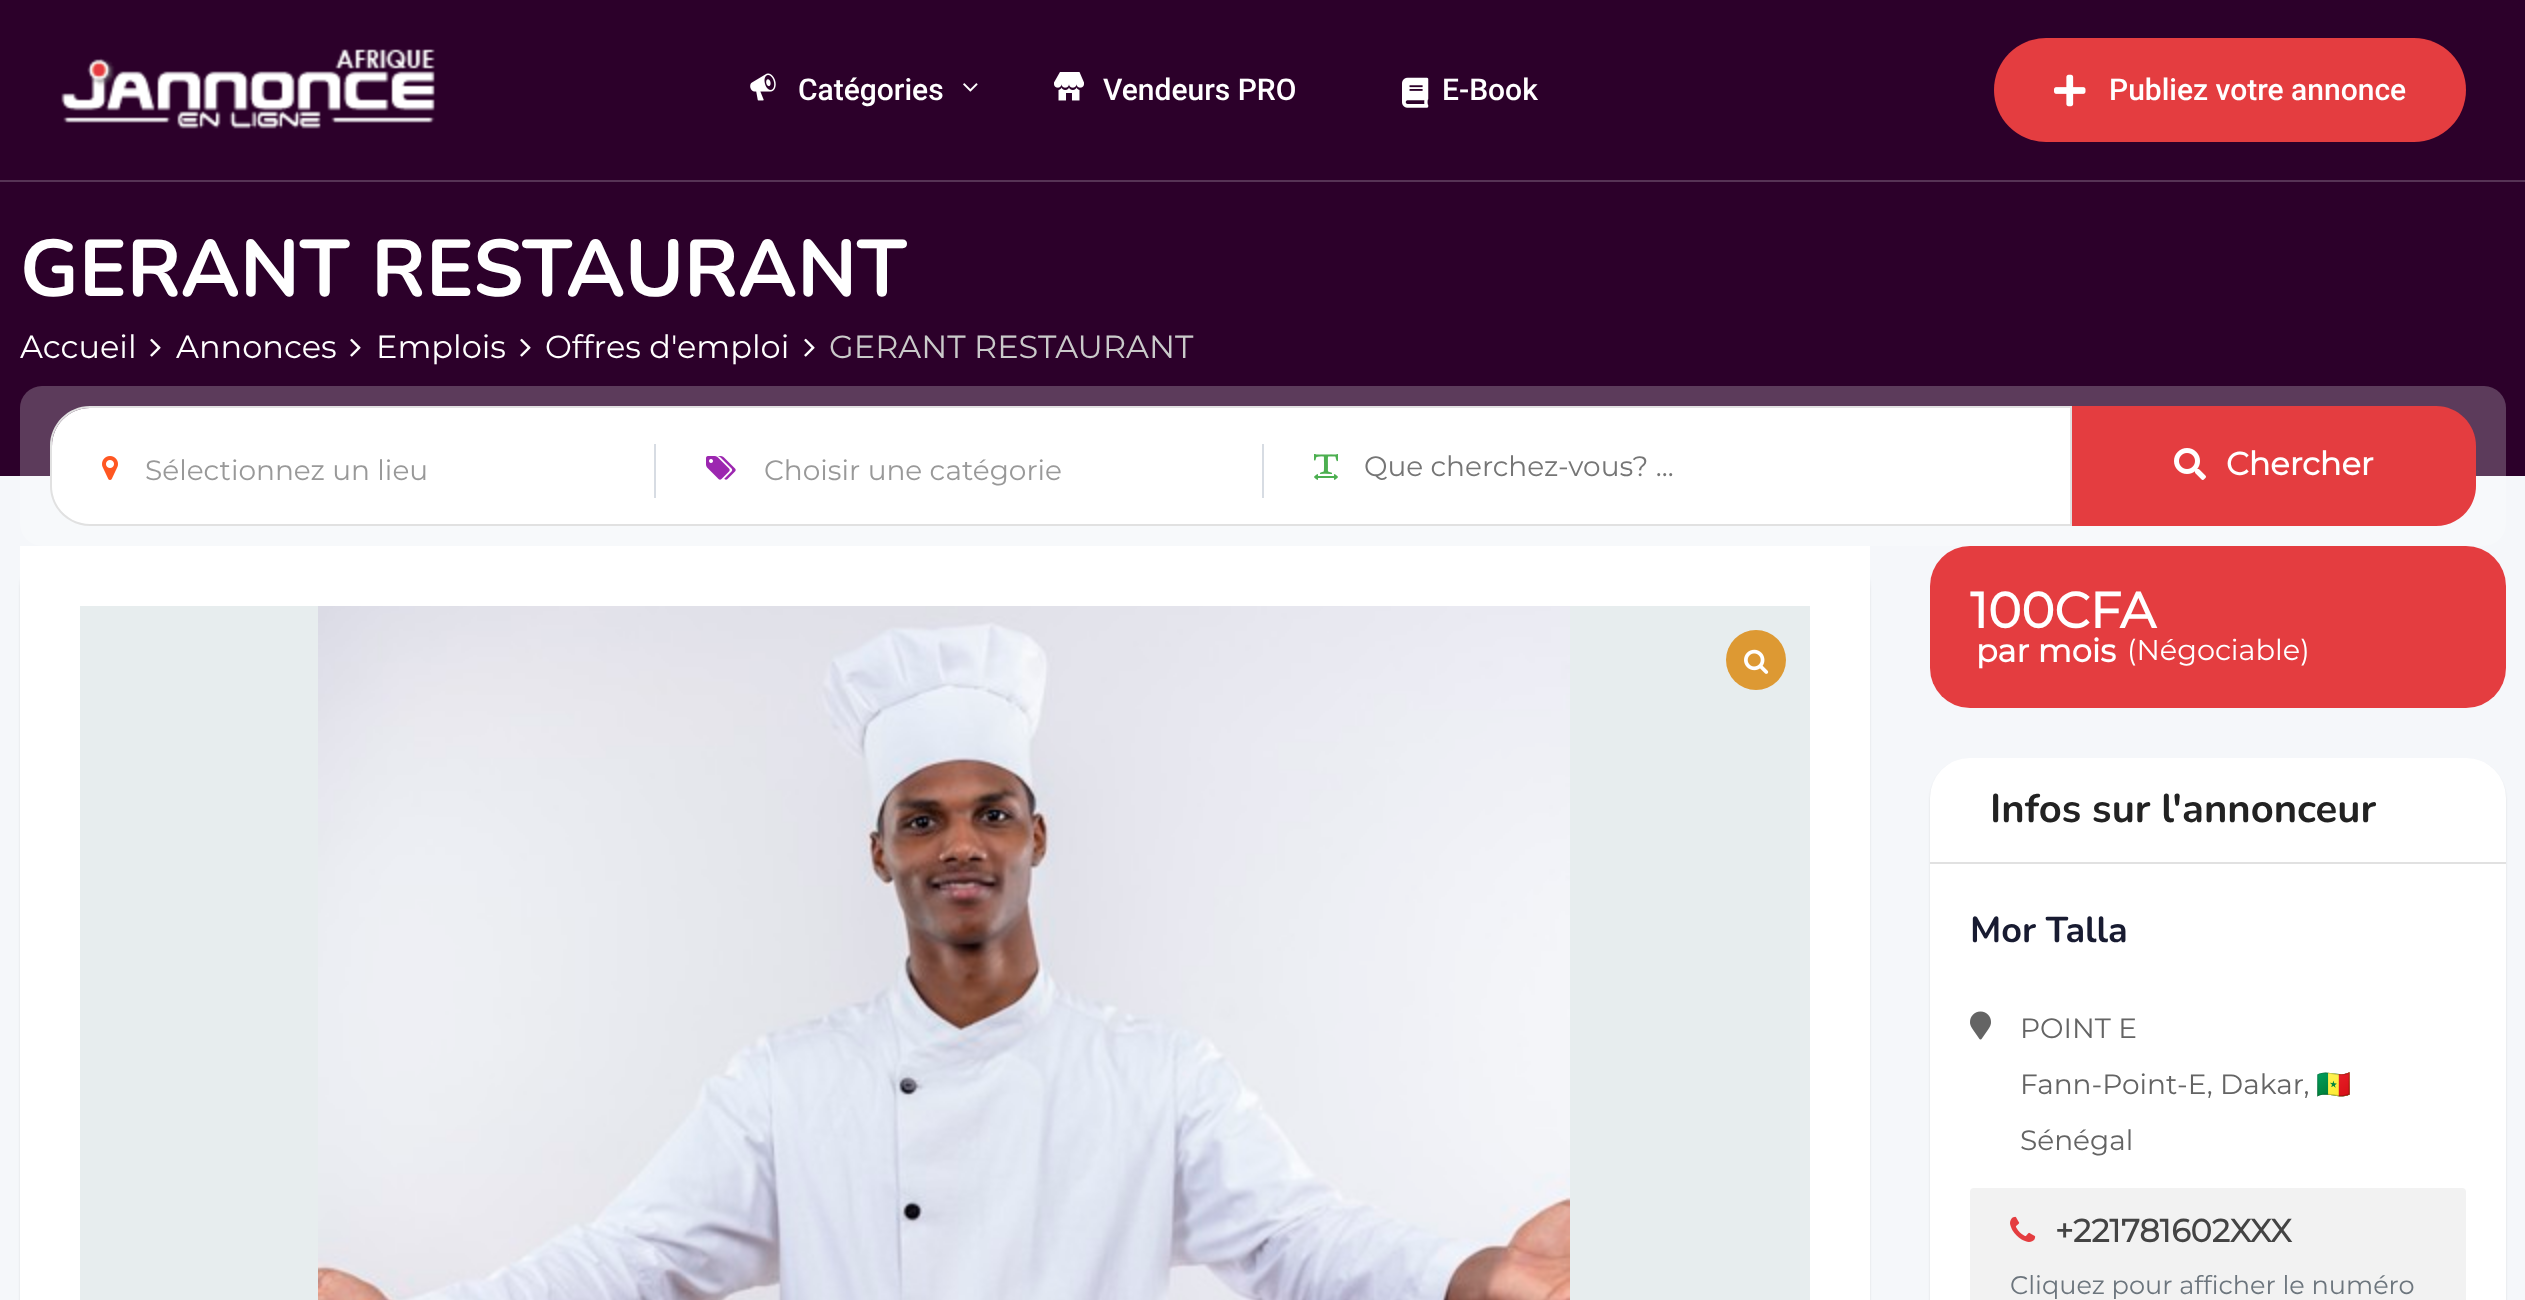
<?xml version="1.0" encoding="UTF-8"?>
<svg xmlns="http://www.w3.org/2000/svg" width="2525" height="1300">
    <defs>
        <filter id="blur1" x="-50%" y="-200%" width="200%" height="500%"><feGaussianBlur stdDeviation="1"/></filter>
    </defs>
    <rect width="100%" height="100%" fill="#F5F7FA"/>
    <rect x="0" y="0" width="2525" height="476" fill="#2C002A"/>
    <rect x="0" y="180" width="2525" height="2" fill="#563355"/>
    <image x="61" y="49" width="374" height="80" href="img_01.png"/>
    <image x="750" y="73" width="26" height="28" href="img_02.png"/>
    <text x="798" y="100" font-family="Roboto" font-size="30" font-weight="500" fill="#FFFFFF">Catégories</text>
    <image x="963" y="83" width="15" height="9" href="img_03.png"/>
    <image x="1054" y="72" width="30" height="29" href="img_04.png"/>
    <text x="1103" y="100" font-family="Roboto" font-size="30" font-weight="500" fill="#FFFFFF">Vendeurs PRO</text>
    <image x="1402" y="77" width="27" height="31" href="img_05.png"/>
    <text x="1442" y="100" font-family="Roboto" font-size="30" font-weight="500" fill="#FFFFFF">E-Book</text>
    <rect x="1994" y="38" width="472" height="104" rx="52" fill="#E43D40"/>
    <image x="2054" y="74" width="32" height="33" href="img_06.png"/>
    <text x="2109" y="100" font-family="Roboto" font-size="30" font-weight="500" fill="#FFFFFF">Publiez votre annonce</text>
    <text x="20" y="296" font-family="Nunito" font-size="80" font-weight="200" fill="#FFFFFF">GERANT RESTAURANT</text>
    <text x="20" y="358" font-family="Montserrat" font-size="32" font-weight="100" fill="#FFFFFF">Accueil</text>
    <image x="150" y="338" width="11" height="19" href="img_07.png"/>
    <text x="176" y="358" font-family="Montserrat" font-size="32" font-weight="100" fill="#FFFFFF">Annonces</text>
    <image x="350" y="338" width="11" height="19" href="img_07.png"/>
    <text x="376" y="358" font-family="Montserrat" font-size="32" font-weight="100" fill="#FFFFFF">Emplois</text>
    <image x="520" y="338" width="11" height="19" href="img_07.png"/>
    <text x="545" y="358" font-family="Montserrat" font-size="32" font-weight="100" fill="#FFFFFF">Offres d'emploi</text>
    <image x="804" y="338" width="11" height="19" href="img_07.png"/>
    <text x="829" y="358" font-family="Montserrat" font-size="32" font-weight="100" fill="#CACACA">GERANT RESTAURANT</text>
    <rect x="20" y="386" width="2486" height="160" rx="22" fill="#FFFFFF" fill-opacity="0.23"/>
    <path d="M 90 408 H 656 V 524 H 90 C 69 524 52 507 52 486 V 446 C 52 425 69 408 90 408 Z" fill="#FFFFFF"/>
    <path d="M 90 406 H 656 V 526 H 90 C 68 526 50 508 50 486 V 446 C 50 424 68 406 90 406 Z M 90 408 H 656 V 524 H 90 C 69 524 52 507 52 486 V 446 C 52 425 69 408 90 408 Z" fill="#E1E1E1" fill-rule="evenodd"/>
    <image x="102" y="456" width="16" height="24" href="img_08.png"/>
    <text x="145" y="480" font-family="Montserrat" font-size="28" font-weight="100" fill="#999999">Sélectionnez un lieu</text>
    <rect x="654" y="444" width="2" height="54" fill="#D7DCE3"/>
    <rect x="656" y="408" width="1414" height="116" fill="#FFFFFF"/>
    <rect x="656" y="406" width="1416" height="2" fill="#E1E1E1"/>
    <rect x="656" y="524" width="608" height="2" fill="#E1E1E1"/>
    <image x="706" y="456" width="30" height="24" href="img_09.png"/>
    <text x="764" y="480" font-family="Montserrat" font-size="28" font-weight="100" fill="#999999">Choisir une catégorie</text>
    <rect x="1262" y="444" width="2" height="54" fill="#D7DCE3"/>
    <rect x="2070" y="406" width="2" height="120" fill="#E1E1E1"/>
    <rect x="1264" y="524" width="808" height="2" fill="#E1E1E1"/>
    <image x="1314" y="454" width="24" height="26" href="img_10.png"/>
    <text x="1364" y="476" font-family="Montserrat" font-size="28" font-weight="100" fill="#757575">Que cherchez-vous? ...</text>
    <path d="M 2072 406 H 2436 C 2458 406 2476 424 2476 446 V 486 C 2476 508 2458 526 2436 526 H 2072 Z" fill="#E43D40"/>
    <image x="2174" y="448" width="32" height="32" href="img_11.png"/>
    <text x="2226" y="475" font-family="Montserrat" font-size="32" font-weight="700" fill="#FFFFFF">Chercher</text>
    <rect x="20" y="548" width="1850" height="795" rx="40" fill="#000000" fill-opacity="0.1" filter="url(#blur1)"/>
    <rect x="20" y="546" width="1850" height="754" fill="#FFFFFF"/>
    <rect x="80" y="606" width="1730" height="694" fill="#E7EDEE"/>
    <image x="318" y="606" width="1252" height="694" href="img_12.png"/>
    <circle cx="1756" cy="660" r="30" fill="#DD9933"/>
    <image x="1744" y="649" width="25" height="25" href="img_13.png"/>
    <rect x="1930" y="546" width="576" height="162" rx="40" fill="#E43D40"/>
    <text x="1970" y="628" font-family="Montserrat" font-size="50" font-weight="700" fill="#FFFFFF">100CFA</text>
    <text x="1976" y="662" font-family="Montserrat" font-size="32" font-weight="700" fill="#FFFFFF">par mois</text>
    <text x="2127" y="660" font-family="Montserrat" font-size="28.75" font-weight="100" fill="#FFFFFF">(Négociable)</text>
    <rect x="1930" y="760" width="576" height="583" rx="40" fill="#000000" fill-opacity="0.1" filter="url(#blur1)"/>
    <rect x="1930" y="758" width="576" height="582" rx="40" fill="#FFFFFF"/>
    <rect x="1930" y="862" width="576" height="2" fill="#E1E1E1"/>
    <text x="1990" y="822" font-family="Nunito" font-size="40" font-weight="200" fill="#222222">Infos sur l'annonceur</text>
    <text x="1970" y="942" font-family="Nunito" font-size="36" font-weight="200" fill="#181B31">Mor Talla</text>
    <image x="1970" y="1011" width="21" height="29" href="img_14.png"/>
    <text x="2020" y="1038" font-family="Montserrat" font-size="28" font-weight="100" fill="#646464">POINT E</text>
    <text x="2020" y="1094" font-family="Montserrat" font-size="28" font-weight="100" fill="#646464">Fann-Point-E, Dakar,</text>
    <text x="2316" y="1094" font-family="Noto Color Emoji" font-size="28" fill="#646464">🇸🇳</text>
    <text x="2020" y="1150" font-family="Montserrat" font-size="28" font-weight="100" fill="#646464">Sénégal</text>
    <rect x="1970" y="1188" width="496" height="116" rx="4" fill="#F2F2F2"/>
    <image x="2010" y="1216" width="26" height="26" href="img_15.png"/>
    <text x="2055" y="1242" font-family="Montserrat" font-size="32" font-weight="700" fill="#444444">+221781602XXX</text>
    <text x="2010" y="1294" font-family="Montserrat" font-size="25.6" font-weight="100" fill="#6C757D">Cliquez pour afficher le numéro</text>
</svg>
